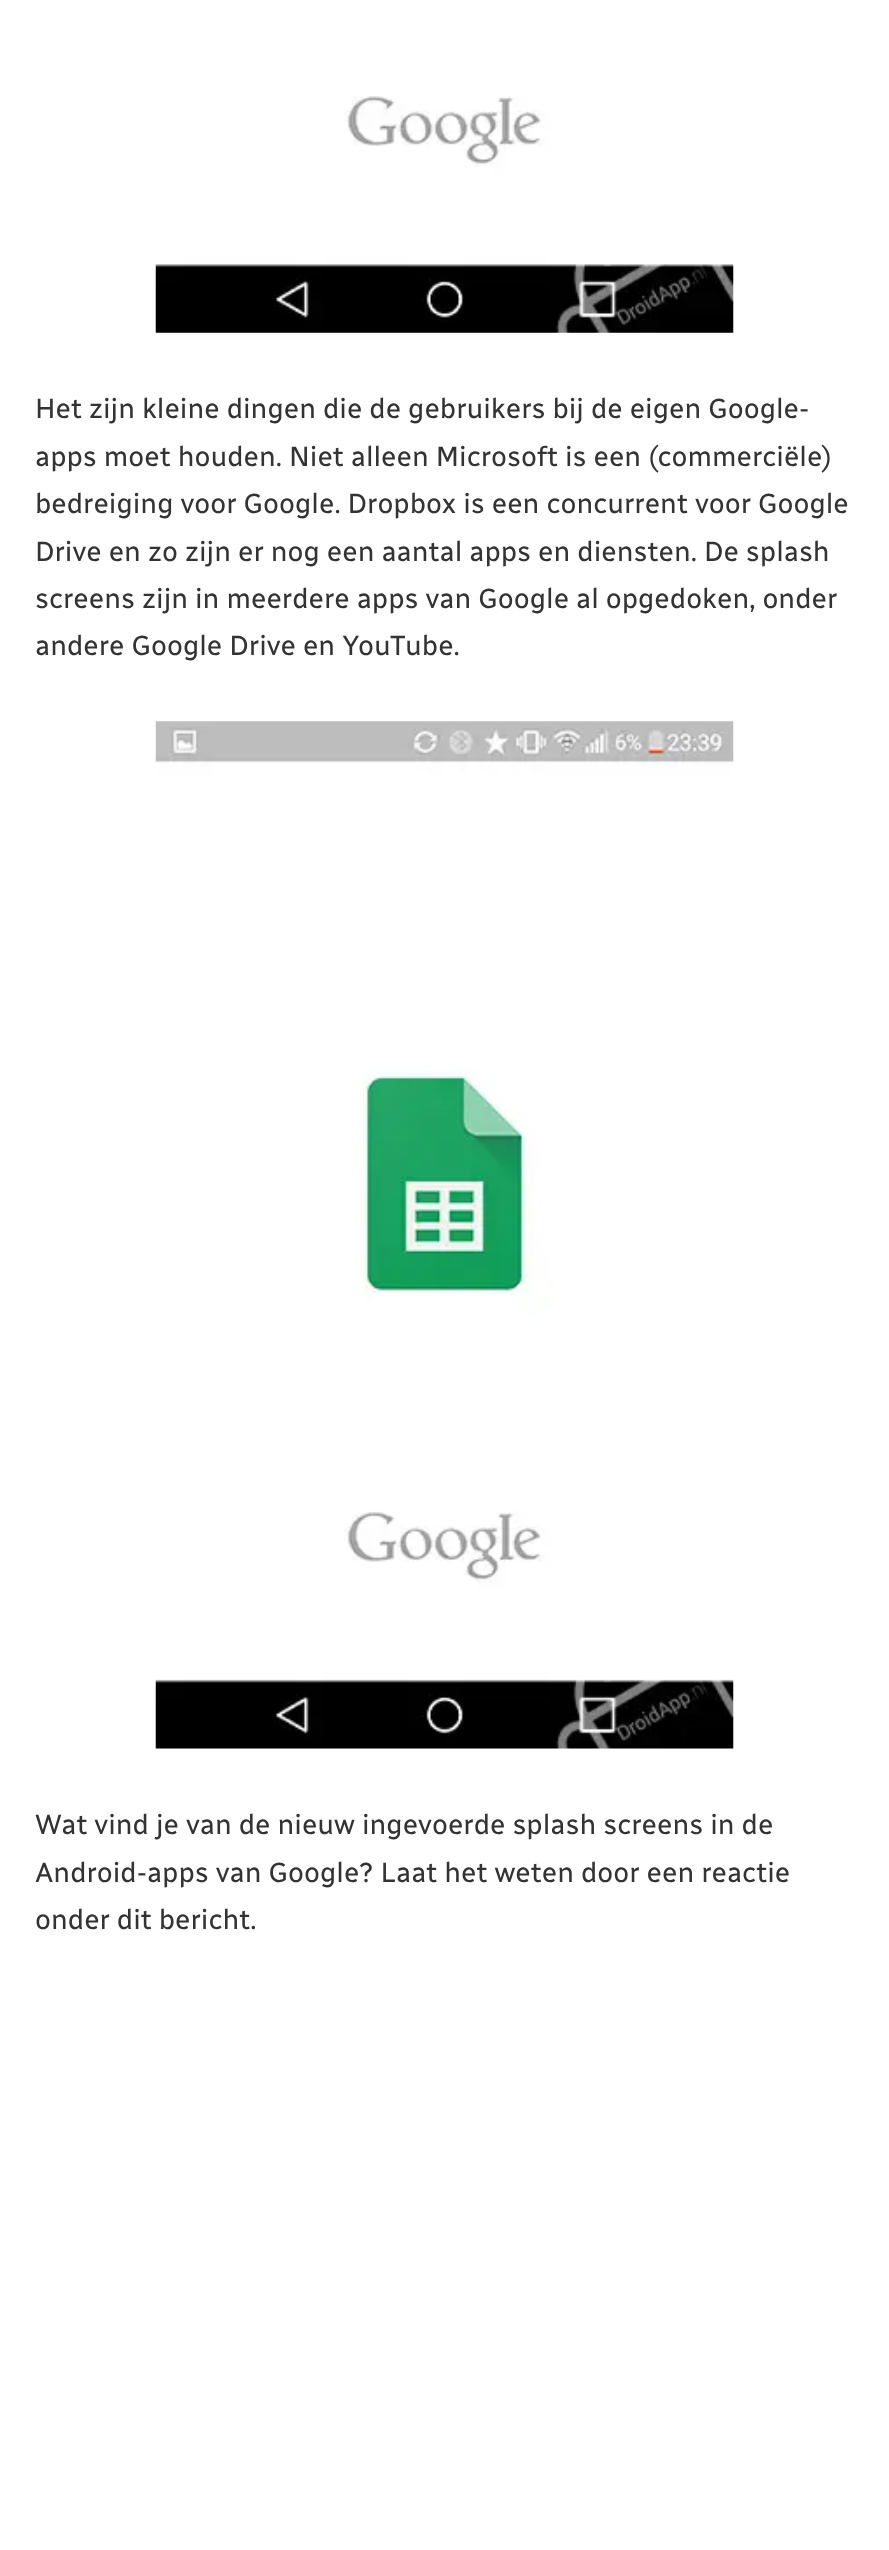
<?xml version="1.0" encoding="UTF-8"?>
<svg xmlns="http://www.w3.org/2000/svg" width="889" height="2550">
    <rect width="100%" height="100%" fill="#FFFFFF"/>
    <image x="155" y="96" width="579" height="237" href="img_01.png"/>
    <text font-family="Radio Canada" font-size="27.9" fill="#333333">
        <tspan x="35" y="418">Het zijn kleine dingen die de gebruikers bij de eigen Google-</tspan>
        <tspan x="35" y="466">apps moet houden. Niet alleen Microsoft is een (commerciële)</tspan>
        <tspan x="35" y="513">bedreiging voor Google. Dropbox is een concurrent voor Google</tspan>
        <tspan x="35" y="561">Drive en zo zijn er nog een aantal apps en diensten. De splash</tspan>
        <tspan x="35" y="608">screens zijn in meerdere apps van Google al opgedoken, onder</tspan>
        <tspan x="35" y="655">andere Google Drive en YouTube.</tspan>
    </text>
    <image x="155" y="721" width="579" height="1028" href="img_02.png"/>
    <text font-family="Radio Canada" font-size="27.9" fill="#333333">
        <tspan x="35" y="1834">Wat vind je van de nieuw ingevoerde splash screens in de</tspan>
        <tspan x="35" y="1882">Android-apps van Google? Laat het weten door een reactie</tspan>
        <tspan x="35" y="1929">onder dit bericht.</tspan>
    </text>
</svg>
